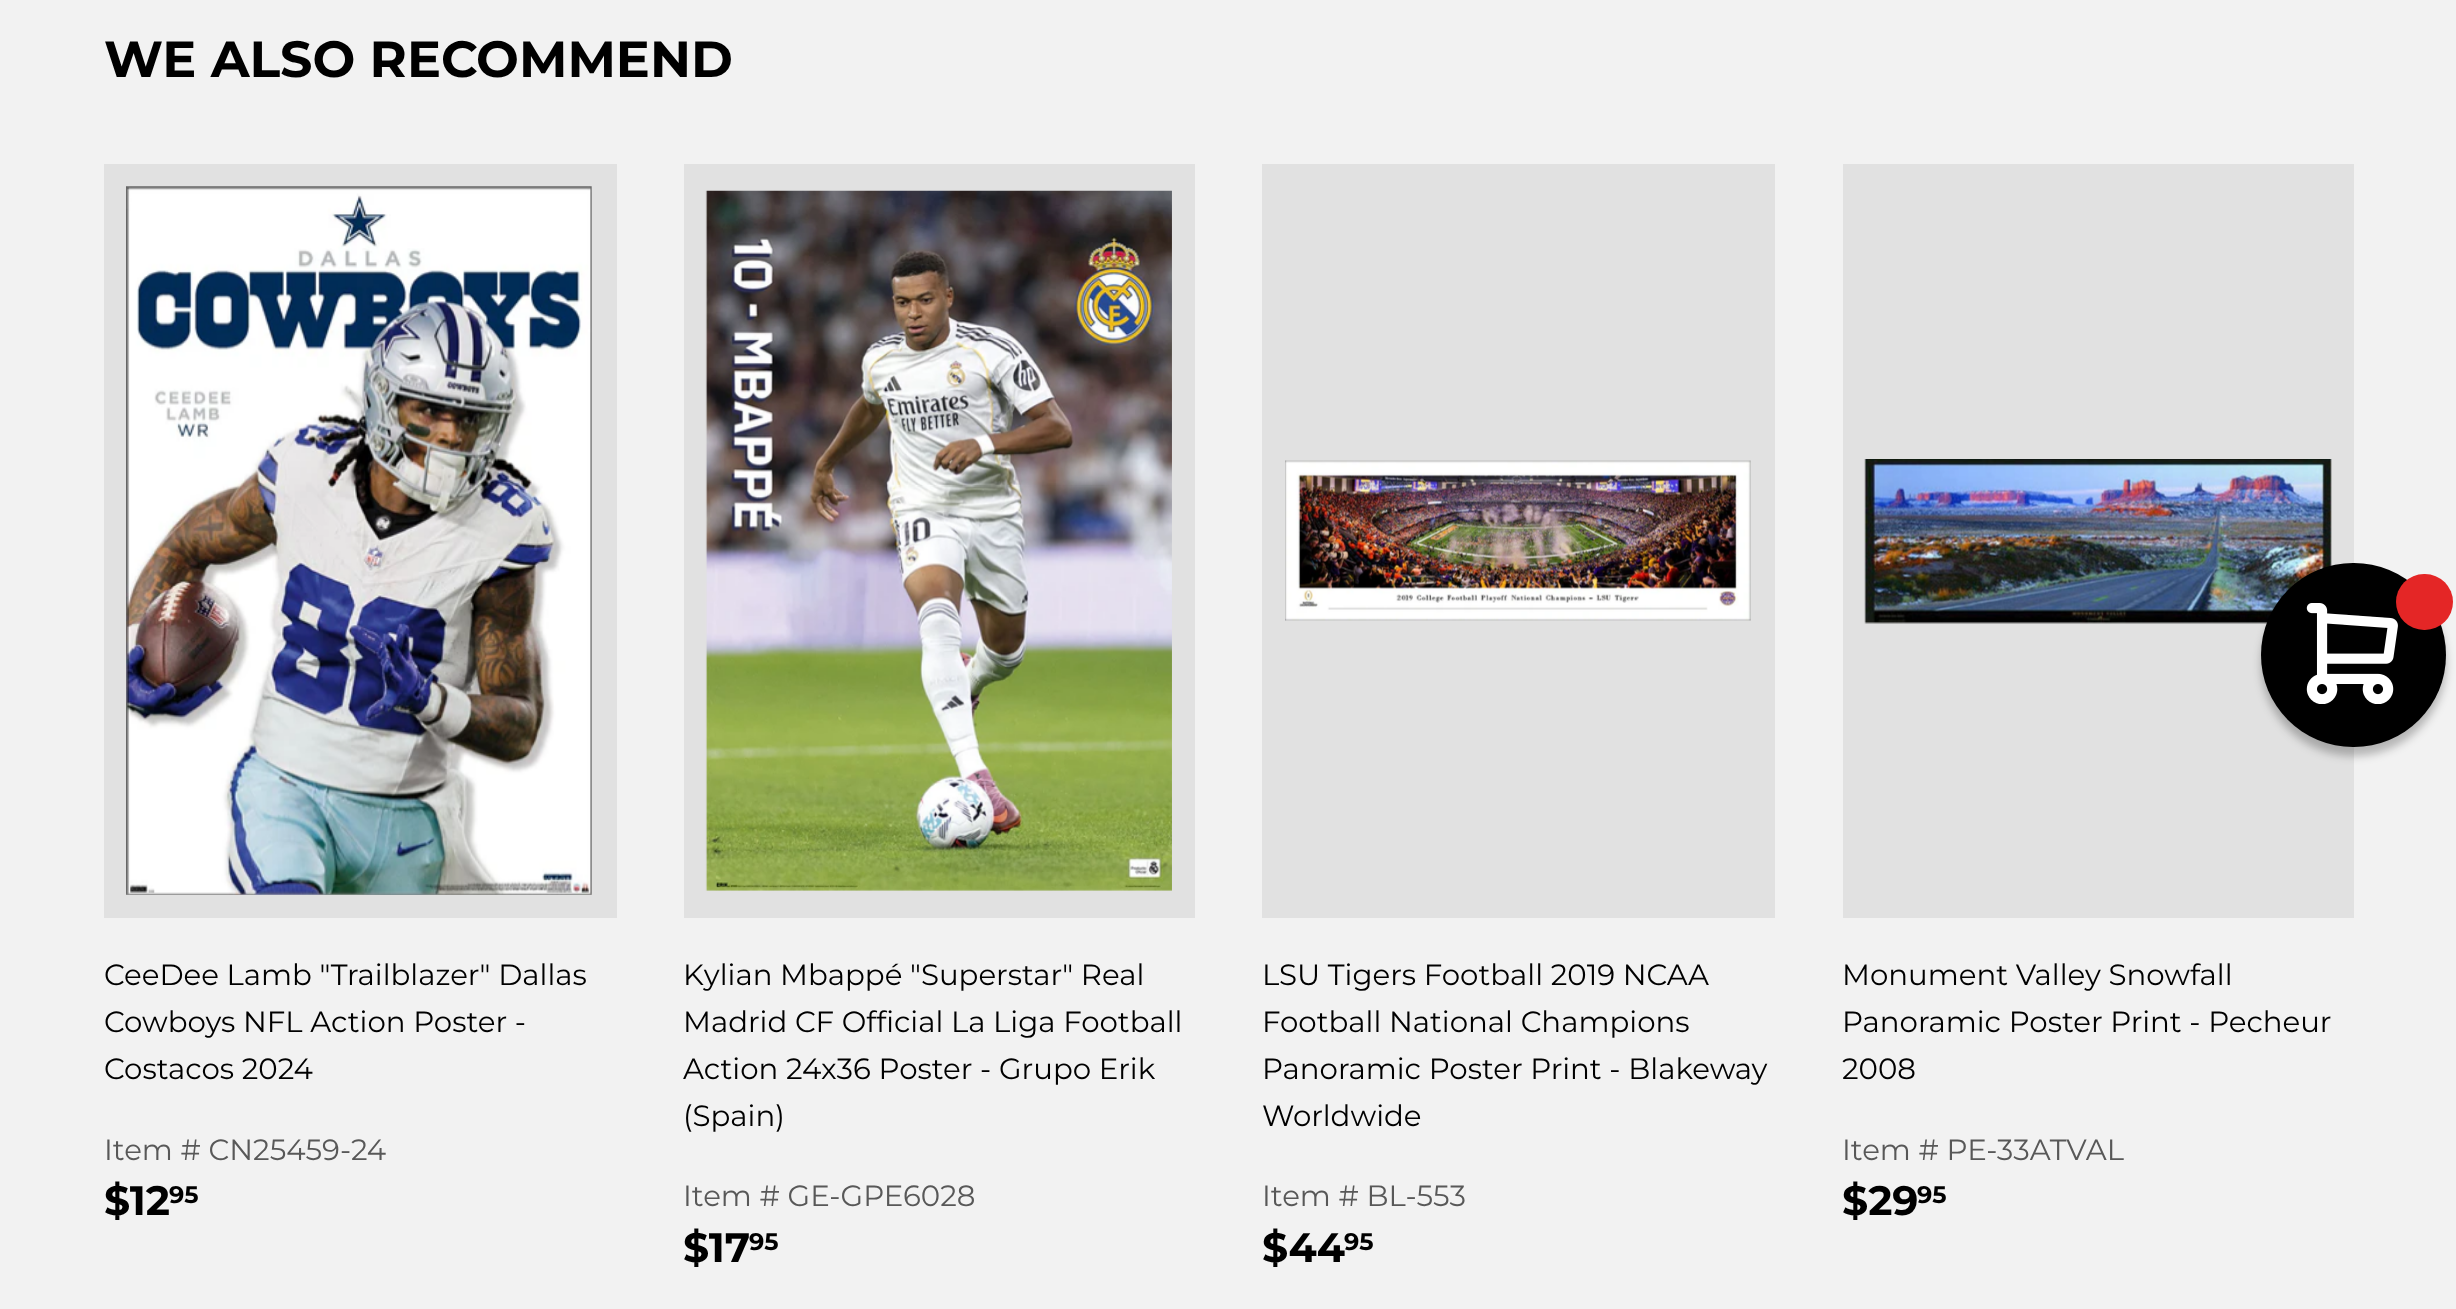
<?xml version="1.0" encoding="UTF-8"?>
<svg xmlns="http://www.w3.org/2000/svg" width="2456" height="1309">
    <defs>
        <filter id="blur1" x="-50%" y="-200%" width="200%" height="500%"><feGaussianBlur stdDeviation="4.5"/></filter>
    </defs>
    <rect width="100%" height="100%" fill="#F2F2F2"/>
    <text x="104" y="77" font-family="Montserrat" font-size="50.75" font-weight="700" fill="#000000">WE ALSO RECOMMEND</text>
    <rect x="104" y="164" width="513" height="754" fill="#E1E1E1"/>
    <image x="126" y="186" width="466" height="709" href="img_01.png"/>
    <text font-family="Montserrat" font-size="29.25" fill="#000000">
        <tspan x="104" y="985">CeeDee Lamb "Trailblazer" Dallas</tspan>
        <tspan x="104" y="1032">Cowboys NFL Action Poster -</tspan>
        <tspan x="104" y="1079">Costacos 2024</tspan>
    </text>
    <text x="104" y="1160" font-family="Montserrat" font-size="29.25" fill="#585858">Item # CN25459-24</text>
    <text x="104" y="1215" font-family="Montserrat" font-size="41" font-weight="700" fill="#000000">$12</text>
    <text x="169" y="1203" font-family="Montserrat" font-size="24" font-weight="700" fill="#000000">95</text>
    <rect x="684" y="164" width="511" height="754" fill="#E1E1E1"/>
    <image x="705" y="190" width="467" height="701" href="img_02.png"/>
    <text font-family="Montserrat" font-size="29.25" fill="#000000">
        <tspan x="683" y="985">Kylian Mbappé "Superstar" Real</tspan>
        <tspan x="683" y="1032">Madrid CF Official La Liga Football</tspan>
        <tspan x="683" y="1079">Action 24x36 Poster - Grupo Erik</tspan>
        <tspan x="683" y="1126">(Spain)</tspan>
    </text>
    <text x="683" y="1206" font-family="Montserrat" font-size="29.25" fill="#585858">Item # GE-GPE6028</text>
    <text x="683" y="1262" font-family="Montserrat" font-size="41" font-weight="700" fill="#000000">$17</text>
    <text x="749" y="1250" font-family="Montserrat" font-size="24" font-weight="700" fill="#000000">95</text>
    <rect x="1262" y="164" width="513" height="754" fill="#E1E1E1"/>
    <image x="1285" y="460" width="466" height="161" href="img_03.png"/>
    <text font-family="Montserrat" font-size="29.25" fill="#000000">
        <tspan x="1262" y="985">LSU Tigers Football 2019 NCAA</tspan>
        <tspan x="1262" y="1032">Football National Champions</tspan>
        <tspan x="1262" y="1079">Panoramic Poster Print - Blakeway</tspan>
        <tspan x="1262" y="1126">Worldwide</tspan>
    </text>
    <text x="1262" y="1206" font-family="Montserrat" font-size="29.25" fill="#585858">Item # BL-553</text>
    <text x="1262" y="1262" font-family="Montserrat" font-size="41" font-weight="700" fill="#000000">$44</text>
    <text x="1344" y="1250" font-family="Montserrat" font-size="24" font-weight="700" fill="#000000">95</text>
    <rect x="1843" y="164" width="511" height="754" fill="#E1E1E1"/>
    <image x="1864" y="459" width="468" height="165" href="img_04.png"/>
    <text font-family="Montserrat" font-size="29.25" fill="#000000">
        <tspan x="1842" y="985">Monument Valley Snowfall</tspan>
        <tspan x="1842" y="1032">Panoramic Poster Print - Pecheur</tspan>
        <tspan x="1842" y="1079">2008</tspan>
    </text>
    <text x="1842" y="1160" font-family="Montserrat" font-size="29.25" fill="#585858">Item # PE-33ATVAL</text>
    <text x="1842" y="1215" font-family="Montserrat" font-size="41" font-weight="700" fill="#000000">$29</text>
    <text x="1917" y="1203" font-family="Montserrat" font-size="24" font-weight="700" fill="#000000">95</text>
    <rect x="2261" y="572" width="185" height="184" rx="92" fill="#000000" fill-opacity="0.25" filter="url(#blur1)"/>
    <rect x="2261" y="563" width="185" height="184" rx="92" fill="#000000"/>
    <rect x="2396" y="574" width="57" height="56" rx="28" fill="#E42626"/>
    <image x="2306" y="603" width="92" height="101" href="img_05.png"/>
</svg>
